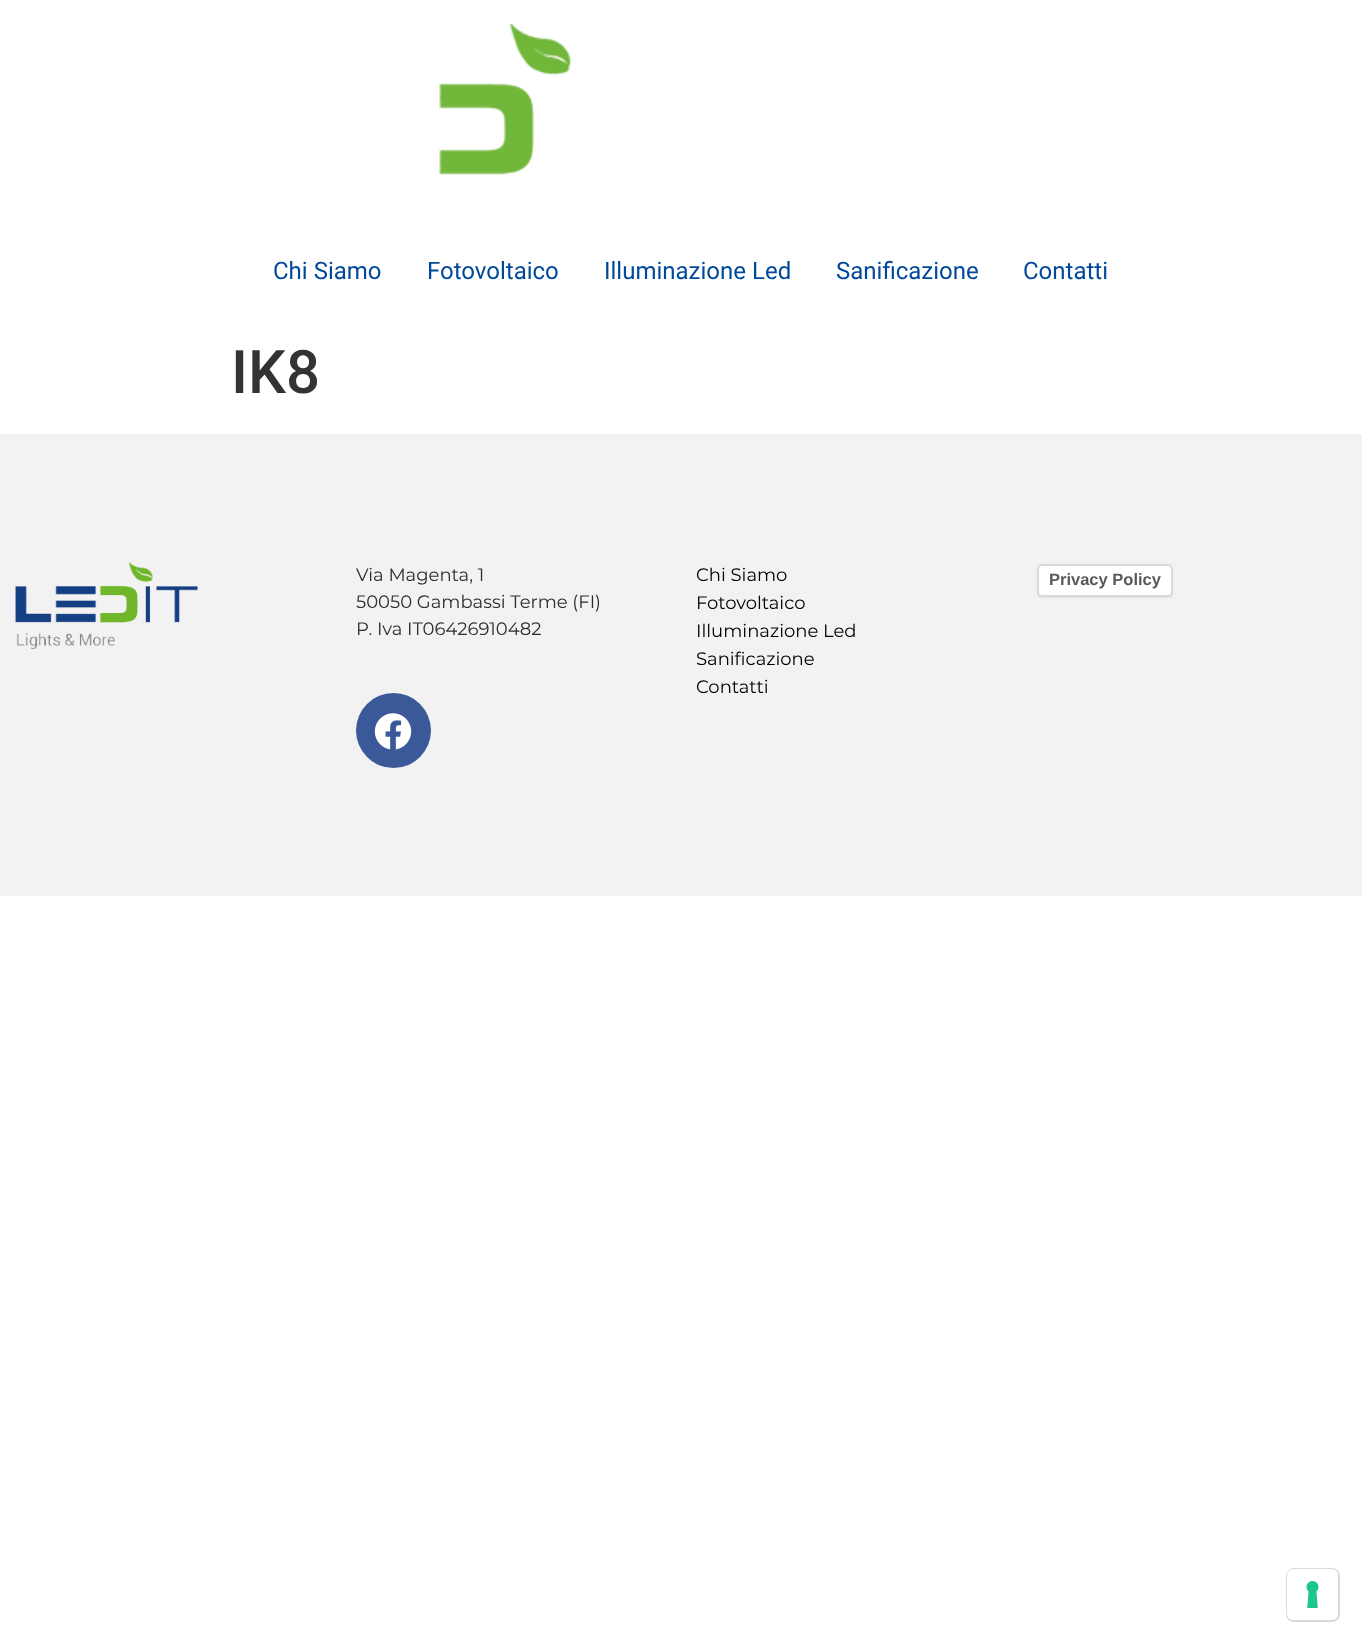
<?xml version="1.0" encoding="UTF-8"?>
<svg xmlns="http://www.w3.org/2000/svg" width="1362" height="1644">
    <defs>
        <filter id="blur1" x="-50%" y="-200%" width="200%" height="500%"><feGaussianBlur stdDeviation="1"/></filter>
    </defs>
    <rect width="100%" height="100%" fill="#FFFFFF"/>
    <image x="439" y="24" width="133" height="151" href="img_01.png"/>
    <text x="273" y="279" font-family="Roboto" font-size="24" fill="#004899">Chi Siamo</text>
    <text x="427" y="279" font-family="Roboto" font-size="24" fill="#004899">Fotovoltaico</text>
    <text x="604" y="279" font-family="Roboto" font-size="24" fill="#004899">Illuminazione Led</text>
    <text x="836" y="279" font-family="Roboto" font-size="24" fill="#004899">Sanificazione</text>
    <text x="1023" y="279" font-family="Roboto" font-size="24" fill="#004899">Contatti</text>
    <text x="231" y="393" font-family="Roboto" font-size="60" font-weight="500" fill="#333333">IK8</text>
    <rect x="0" y="434" width="1362" height="462" fill="#F2F2F2"/>
    <image x="15" y="562" width="183" height="87" href="img_02.png"/>
    <text font-family="Montserrat" font-size="18" fill="#2A2D31">
        <tspan x="356" y="581">Via Magenta, 1</tspan>
        <tspan x="356" y="608">50050 Gambassi Terme (FI)</tspan>
        <tspan x="356" y="635">P. Iva IT06426910482</tspan>
    </text>
    <circle cx="393.5" cy="730.5" r="37.5" fill="#3B5998"/>
    <image x="374" y="713" width="38" height="37" href="img_03.png"/>
    <text font-family="Montserrat" font-size="18" fill="#010101">
        <tspan x="696" y="581">Chi Siamo</tspan>
        <tspan x="696" y="609">Fotovoltaico</tspan>
        <tspan x="696" y="637">Illuminazione Led</tspan>
        <tspan x="696" y="665">Sanificazione</tspan>
        <tspan x="696" y="693">Contatti</tspan>
    </text>
    <rect x="1038" y="567" width="134" height="30" rx="3" fill="#000000" fill-opacity="0.15" filter="url(#blur1)"/>
    <rect x="1037" y="564" width="136" height="33" rx="5" fill="#FFFFFF"/>
    <rect x="1038" y="565" width="134" height="31" rx="4" fill="none" stroke="#000000" stroke-opacity="0.15" stroke-width="2"/>
    <text x="1049" y="585" font-family="Liberation Sans" font-size="16.5" font-weight="700" fill="#595959">Privacy Policy</text>
    <rect x="1287" y="1569" width="52" height="52" rx="7" fill="none" stroke="#D9D9D9" stroke-width="2"/>
    <rect x="1287" y="1569" width="51" height="51" rx="6" fill="#FFFFFF"/>
    <image x="1306" y="1581" width="13" height="27" href="img_04.png"/>
</svg>
